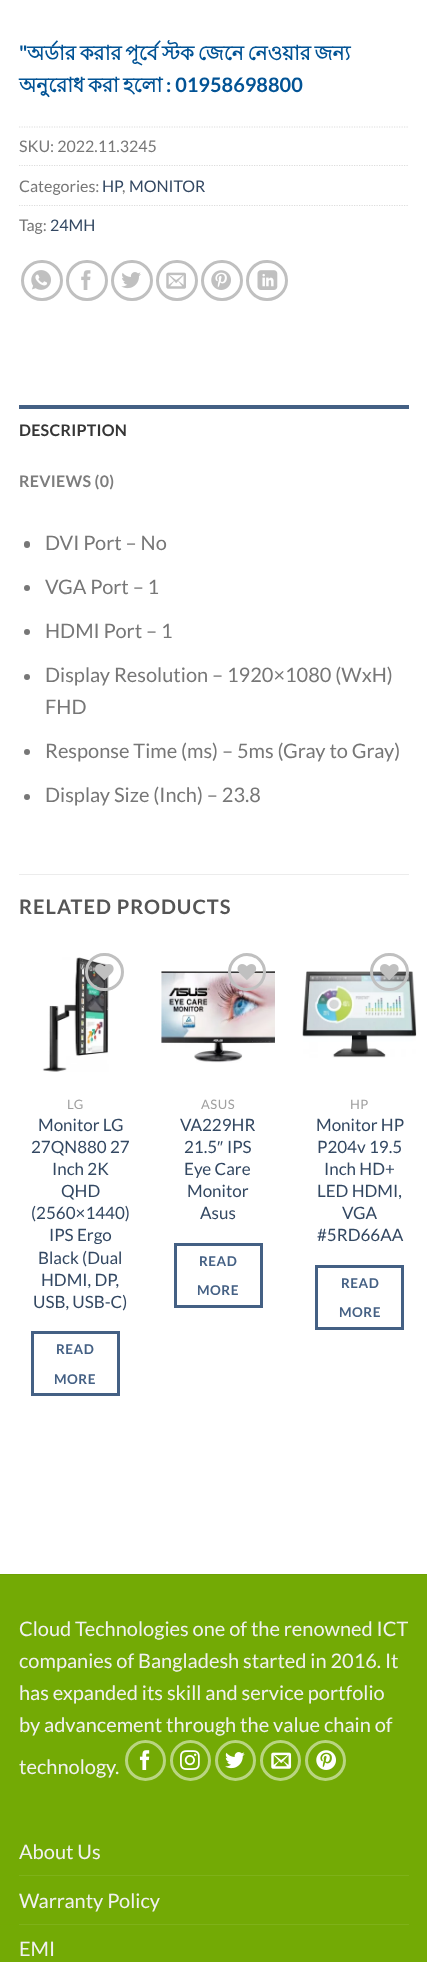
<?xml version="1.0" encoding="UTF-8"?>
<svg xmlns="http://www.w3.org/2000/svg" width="427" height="1962">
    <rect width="100%" height="100%" fill="#FFFFFF"/>
    <text x="19" y="60" font-family="Lato" font-size="20" font-weight="700" fill="#025395">"</text>
    <text x="27" y="60" word-spacing="-1.75" font-family="Lohit Bengali" font-size="20" font-weight="700" fill="#025395">অর্ডার করার পূর্বে স্টক জেনে নেওয়ার জন্য</text>
    <text x="19" y="92" font-family="Lohit Bengali" font-size="20" font-weight="700" fill="#025395">অনুরোধ</text>
    <text x="88" y="92" font-family="Lohit Bengali" font-size="20" font-weight="700" fill="#025395">করা</text>
    <text x="123" y="92" font-family="Lohit Bengali" font-size="20" font-weight="700" fill="#025395">হলো</text>
    <text x="166" y="92" font-family="Lato" font-size="20" font-weight="700" fill="#025395">: 01958698800</text>
    <path d="M 19 127 H 409" fill="none" stroke="#DDDDDD" stroke-width="1.2" stroke-dasharray="1.25 1.25"/>
    <text x="19" y="152" font-family="Lato" font-size="16" fill="#777777">SKU: 2022.11.3245</text>
    <path d="M 19 165.5 H 409" fill="none" stroke="#DDDDDD" stroke-width="1.2" stroke-dasharray="1.25 1.25"/>
    <text x="19" y="192" font-family="Lato" font-size="16" fill="#777777">Categories:</text>
    <text x="102" y="192" font-family="Lato" font-size="16" fill="#334862">HP</text>
    <text x="129" y="192" font-family="Lato" font-size="16" fill="#334862">MONITOR</text>
    <text x="122" y="192" font-family="Lato" font-size="16" fill="#777777">,</text>
    <path d="M 19 205.5 H 409" fill="none" stroke="#DDDDDD" stroke-width="1.2" stroke-dasharray="1.25 1.25"/>
    <text x="19" y="231" font-family="Lato" font-size="16" fill="#777777">Tag:</text>
    <text x="50" y="231" font-family="Lato" font-size="16" fill="#334862">24MH</text>
    <rect x="22.5" y="261.5" width="39" height="38" rx="19" fill="none" stroke="#C0C0C0" stroke-width="3"/>
    <image x="31" y="270" width="20" height="20" href="img_01.png"/>
    <rect x="67.5" y="261.5" width="39" height="38" rx="19" fill="none" stroke="#C0C0C0" stroke-width="3"/>
    <image x="81" y="270" width="10" height="20" href="img_02.png"/>
    <rect x="112.5" y="261.5" width="39" height="38" rx="19" fill="none" stroke="#C0C0C0" stroke-width="3"/>
    <image x="121" y="272" width="20" height="17" href="img_03.png"/>
    <rect x="157.5" y="261.5" width="39" height="38" rx="19" fill="none" stroke="#C0C0C0" stroke-width="3"/>
    <image x="166" y="272" width="20" height="17" href="img_04.png"/>
    <rect x="202.5" y="261.5" width="39" height="38" rx="19" fill="none" stroke="#C0C0C0" stroke-width="3"/>
    <image x="211" y="270" width="20" height="20" href="img_05.png"/>
    <rect x="247.5" y="261.5" width="39" height="38" rx="19" fill="none" stroke="#C0C0C0" stroke-width="3"/>
    <image x="257" y="270" width="21" height="20" href="img_06.png"/>
    <rect x="19" y="405" width="390" height="4" fill="#446084"/>
    <text x="19" y="436" font-family="Lato" font-size="16" font-weight="700" letter-spacing="0.25" fill="#353535">DESCRIPTION</text>
    <text x="19" y="487" font-family="Lato" font-size="16" font-weight="700" letter-spacing="0.25" fill="#7D7D7D">REVIEWS (0)</text>
    <rect x="24" y="541" width="6" height="7" rx="3" fill="#777777"/>
    <text x="45" y="550" font-family="Lato" font-size="20" fill="#777777">DVI Port – No</text>
    <circle cx="27" cy="588" r="3" fill="#777777"/>
    <text x="45" y="594" font-family="Lato" font-size="20" fill="#777777">VGA Port – 1</text>
    <circle cx="27" cy="632" r="3" fill="#777777"/>
    <text x="45" y="638" font-family="Lato" font-size="20" fill="#777777">HDMI Port – 1</text>
    <circle cx="27" cy="677" r="3" fill="#777777"/>
    <text font-family="Lato" font-size="20" fill="#777777">
        <tspan x="45" y="682">Display Resolution – 1920×1080 (WxH)</tspan>
        <tspan x="45" y="714">FHD</tspan>
    </text>
    <circle cx="27" cy="752" r="3" fill="#777777"/>
    <text x="45" y="758" font-family="Lato" font-size="20" fill="#777777">Response Time (ms) – 5ms (Gray to Gray)</text>
    <circle cx="27" cy="797" r="3" fill="#777777"/>
    <text x="45" y="802" font-family="Lato" font-size="20" fill="#777777">Display Size (Inch) – 23.8</text>
    <rect x="19" y="874" width="390" height="1" fill="#ECECEC"/>
    <text x="19" y="914" font-family="Lato" font-size="20" font-weight="700" letter-spacing="1" fill="#555555">RELATED PRODUCTS</text>
    <image x="42" y="957" width="67" height="115" href="img_08.png"/>
    <rect x="86.5" y="954.5" width="36" height="35" rx="17.5" fill="none" stroke="#C0C0C0" stroke-width="3"/>
    <image x="95" y="964" width="19" height="16" href="img_07.png"/>
    <text x="67" y="1109" font-family="Lato" font-size="13" letter-spacing="0.5" fill="#A0A0A0">LG</text>
    <text x="38" y="1131" font-family="Lato" font-size="17" fill="#334862">Monitor LG</text>
    <text x="31" y="1153" font-family="Lato" font-size="17" fill="#334862">27QN880 27</text>
    <text x="52" y="1175" font-family="Lato" font-size="17" fill="#334862">Inch 2K</text>
    <text x="61" y="1197" font-family="Lato" font-size="17" fill="#334862">QHD</text>
    <text x="31" y="1219" font-family="Lato" font-size="17" fill="#334862">(2560×1440)</text>
    <text x="49" y="1241" font-family="Lato" font-size="17" fill="#334862">IPS Ergo</text>
    <text x="38" y="1264" font-family="Lato" font-size="17" fill="#334862">Black (Dual</text>
    <text x="41" y="1286" font-family="Lato" font-size="17" fill="#334862">HDMI, DP,</text>
    <text x="33" y="1308" font-family="Lato" font-size="17" fill="#334862">USB, USB-C)</text>
    <rect x="32.5" y="1332.5" width="86" height="62" fill="none" stroke="#446084" stroke-width="3"/>
    <text x="56" y="1354" font-family="Lato" font-size="13.5" font-weight="700" letter-spacing="0.5" fill="#446084">READ</text>
    <text x="54" y="1384" font-family="Lato" font-size="13.5" font-weight="700" letter-spacing="0.5" fill="#446084">MORE</text>
    <image x="161" y="971" width="114" height="92" href="img_10.png"/>
    <circle cx="247" cy="972" r="17.5" fill="none" stroke="#C0C0C0" stroke-width="3"/>
    <image x="237" y="964" width="20" height="16" href="img_09.png"/>
    <text x="201" y="1109" font-family="Lato" font-size="13" letter-spacing="0.5" fill="#A0A0A0">ASUS</text>
    <text x="180" y="1131" font-family="Lato" font-size="17" fill="#334862">VA229HR</text>
    <text x="184" y="1153" font-family="Lato" font-size="17" fill="#334862">21.5</text>
    <text x="217" y="1153" font-family="Liberation Sans" font-size="17" fill="#334862">″</text>
    <text x="227" y="1153" font-family="Lato" font-size="17" fill="#334862">IPS</text>
    <text x="184" y="1175" font-family="Lato" font-size="17" fill="#334862">Eye Care</text>
    <text x="187" y="1197" font-family="Lato" font-size="17" fill="#334862">Monitor</text>
    <text x="200" y="1219" font-family="Lato" font-size="17" fill="#334862">Asus</text>
    <rect x="175.5" y="1244.5" width="86" height="62" fill="none" stroke="#446084" stroke-width="3"/>
    <text x="199" y="1266" font-family="Lato" font-size="13.5" font-weight="700" letter-spacing="0.5" fill="#446084">READ</text>
    <text x="197" y="1295" font-family="Lato" font-size="13.5" font-weight="700" letter-spacing="0.5" fill="#446084">MORE</text>
    <image x="302" y="971" width="115" height="87" href="img_12.png"/>
    <rect x="371.5" y="954.5" width="36" height="35" rx="17.5" fill="none" stroke="#C0C0C0" stroke-width="3"/>
    <image x="380" y="964" width="19" height="16" href="img_11.png"/>
    <text x="350" y="1109" font-family="Lato" font-size="13" letter-spacing="0.5" fill="#A0A0A0">HP</text>
    <text x="316" y="1131" font-family="Lato" font-size="17" fill="#334862">Monitor HP</text>
    <text x="317" y="1153" font-family="Lato" font-size="17" fill="#334862">P204v 19.5</text>
    <text x="324" y="1175" font-family="Lato" font-size="17" fill="#334862">Inch HD+</text>
    <text x="317" y="1197" font-family="Lato" font-size="17" fill="#334862">LED HDMI,</text>
    <text x="342" y="1219" font-family="Lato" font-size="17" fill="#334862">VGA</text>
    <text x="317" y="1241" font-family="Lato" font-size="17" fill="#334862">#5RD66AA</text>
    <rect x="316.5" y="1266.5" width="86" height="62" fill="none" stroke="#446084" stroke-width="3"/>
    <text x="341" y="1288" font-family="Lato" font-size="13.5" font-weight="700" letter-spacing="0.5" fill="#446084">READ</text>
    <text x="339" y="1317" font-family="Lato" font-size="13.5" font-weight="700" letter-spacing="0.5" fill="#446084">MORE</text>
    <rect x="0" y="1575" width="427" height="387" fill="#73AA05"/>
    <rect x="0" y="1574" width="427" height="1" fill="#6DA205"/>
    <text font-family="Lato" font-size="20" fill="#F1F1F1">
        <tspan x="19" y="1636">Cloud Technologies one of the renowned ICT</tspan>
        <tspan x="19" y="1668">companies of Bangladesh started in 2016. It</tspan>
        <tspan x="19" y="1700">has expanded its skill and service portfolio</tspan>
        <tspan x="19" y="1732">by advancement through the value chain of</tspan>
    </text>
    <text x="19" y="1774" font-family="Lato" font-size="20" fill="#F1F1F1">technology.</text>
    <circle cx="145.5" cy="1760.5" r="19" fill="none" stroke="#B9D582" stroke-width="3"/>
    <image x="139" y="1750" width="11" height="20" href="img_13.png"/>
    <circle cx="190.5" cy="1760.5" r="19" fill="none" stroke="#B9D582" stroke-width="3"/>
    <image x="180" y="1750" width="20" height="20" href="img_14.png"/>
    <circle cx="235.5" cy="1760.5" r="19" fill="none" stroke="#B9D582" stroke-width="3"/>
    <image x="225" y="1752" width="20" height="17" href="img_15.png"/>
    <circle cx="280.5" cy="1760.5" r="19" fill="none" stroke="#B9D582" stroke-width="3"/>
    <image x="271" y="1752" width="21" height="17" href="img_16.png"/>
    <circle cx="325.5" cy="1760.5" r="19" fill="none" stroke="#B9D582" stroke-width="3"/>
    <image x="316" y="1750" width="20" height="20" href="img_17.png"/>
    <text x="19" y="1859" font-family="Lato" font-size="20" fill="#F1F1F1">About Us</text>
    <rect x="19" y="1875" width="390" height="1" fill="#7EB119"/>
    <text x="19" y="1908" font-family="Lato" font-size="20" fill="#F1F1F1">Warranty Policy</text>
    <rect x="19" y="1924" width="390" height="1" fill="#7EB119"/>
    <text x="19" y="1956" font-family="Lato" font-size="20" fill="#F1F1F1">EMI</text>
</svg>
